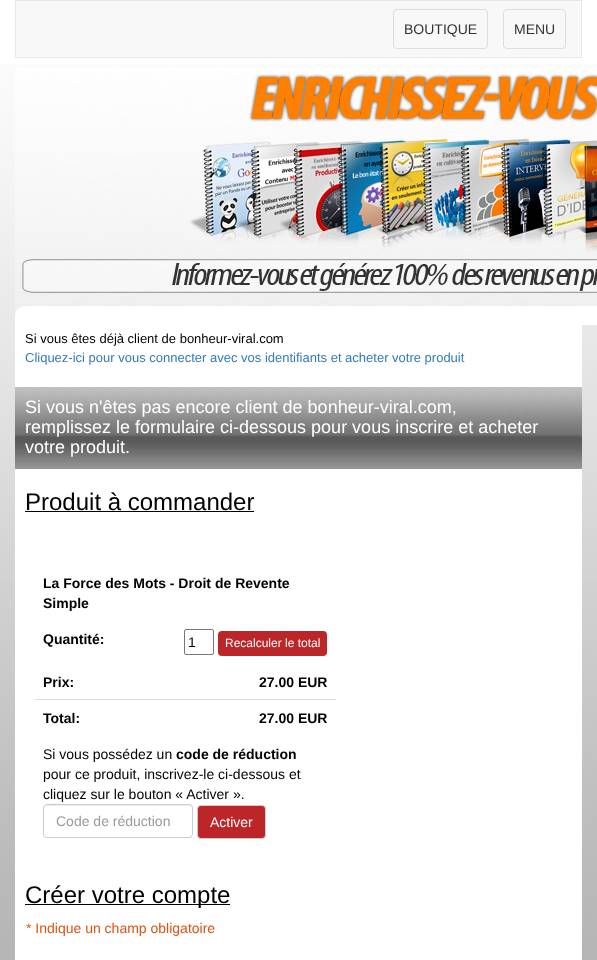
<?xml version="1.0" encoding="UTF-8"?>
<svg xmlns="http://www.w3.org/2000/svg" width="597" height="960">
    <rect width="100%" height="100%" fill="#FFFFFF"/>
    <image x="0" y="64" width="597" height="896" href="img_01.png"/>
    <rect x="15.5" y="0.5" width="566" height="57" fill="#F8F8F8" stroke="#E7E7E7"/>
    <rect x="393.5" y="9.5" width="94" height="39" rx="3.5" fill="none" stroke="#DDDDDD"/>
    <text x="404" y="34" font-family="Liberation Sans" font-size="14" fill="#333333">BOUTIQUE</text>
    <rect x="503.5" y="9.5" width="62" height="39" rx="3.5" fill="none" stroke="#DDDDDD"/>
    <text x="514" y="34" font-family="Liberation Sans" font-size="14" fill="#333333">MENU</text>
    <rect x="15" y="68" width="567" height="892" fill="#FFFFFF"/>
    <image x="15" y="69" width="582" height="256" href="img_02.png"/>
    <text x="25" y="343" font-family="Liberation Sans" font-size="13" fill="#000000">Si vous êtes déjà client de bonheur-viral.com</text>
    <text x="25" y="362" font-family="Liberation Sans" font-size="13" fill="#337AB7">Cliquez-ici pour vous connecter avec vos identifiants et acheter votre produit</text>
    <image x="15" y="387" width="567" height="82" href="img_03.png"/>
    <text font-family="Liberation Sans" font-size="18" fill="#FFFFFF">
        <tspan x="25" y="413">Si vous n'êtes pas encore client de bonheur-viral.com,</tspan>
        <tspan x="25" y="433">remplissez le formulaire ci-dessous pour vous inscrire et acheter</tspan>
        <tspan x="25" y="453">votre produit.</tspan>
    </text>
    <text x="25" y="510" font-family="Liberation Sans" font-size="24" fill="#000000">Produit à commander</text>
    <rect x="25" y="511" width="229" height="1" fill="#000000"/>
    <text font-family="Liberation Sans" font-size="14" font-weight="700" fill="#000000">
        <tspan x="43" y="588">La Force des Mots - Droit de Revente</tspan>
        <tspan x="43" y="608">Simple</tspan>
    </text>
    <text x="43" y="644" font-family="Liberation Sans" font-size="14" font-weight="700" fill="#000000">Quantité:</text>
    <rect x="184.5" y="629.5" width="29" height="25" rx="1.5" fill="none" stroke="#767676"/>
    <text x="188" y="647" font-family="Liberation Sans" font-size="14" fill="#000000">1</text>
    <rect x="218" y="631" width="109" height="25" rx="4" fill="#BD2628"/>
    <text x="225" y="647" font-family="Liberation Sans" font-size="12" fill="#FFFFFF">Recalculer le total</text>
    <text x="43" y="687" font-family="Liberation Sans" font-size="14" font-weight="700" fill="#000000">Prix:</text>
    <text x="259" y="687" font-family="Liberation Sans" font-size="14" font-weight="700" fill="#000000">27.00 EUR</text>
    <text x="43" y="723" font-family="Liberation Sans" font-size="14" font-weight="700" fill="#000000">Total:</text>
    <rect x="35" y="699" width="301" height="1" fill="#DDDDDD"/>
    <text x="259" y="723" font-family="Liberation Sans" font-size="14" font-weight="700" fill="#000000">27.00 EUR</text>
    <text x="43" y="759" font-family="Liberation Sans" font-size="14" fill="#000000">Si vous possédez un</text>
    <text x="176" y="759" font-family="Liberation Sans" font-size="14" font-weight="700" fill="#000000">code de réduction</text>
    <text font-family="Liberation Sans" font-size="14" fill="#000000">
        <tspan x="43" y="779">pour ce produit, inscrivez-le ci-dessous et</tspan>
        <tspan x="43" y="799">cliquez sur le bouton « Activer ».</tspan>
    </text>
    <path d="M 47 806 H 189 C 191 806 192 807 192 809 C 192 807 192 806 190 805 H 71 C 63 805 44 800 44 809 C 44 807 45 806 47 806 Z" fill="#ECECEC"/>
    <rect x="43.5" y="804.5" width="149" height="33" rx="3.5" fill="none" stroke="#CCCCCC"/>
    <text x="56" y="826" font-family="Liberation Sans" font-size="14" fill="#999999">Code de réduction</text>
    <rect x="197.5" y="805.5" width="68" height="33" rx="3.5" fill="#BD2628" stroke="#CCCCCC"/>
    <text x="210" y="827" font-family="Liberation Sans" font-size="14" fill="#FFFFFF">Activer</text>
    <rect x="25" y="904" width="205" height="1" fill="#000000"/>
    <text x="25" y="903" font-family="Liberation Sans" font-size="24" fill="#000000">Créer votre compte</text>
    <text x="26" y="933" font-family="Liberation Sans" font-size="14" fill="#DD5113">* Indique un champ obligatoire</text>
</svg>
